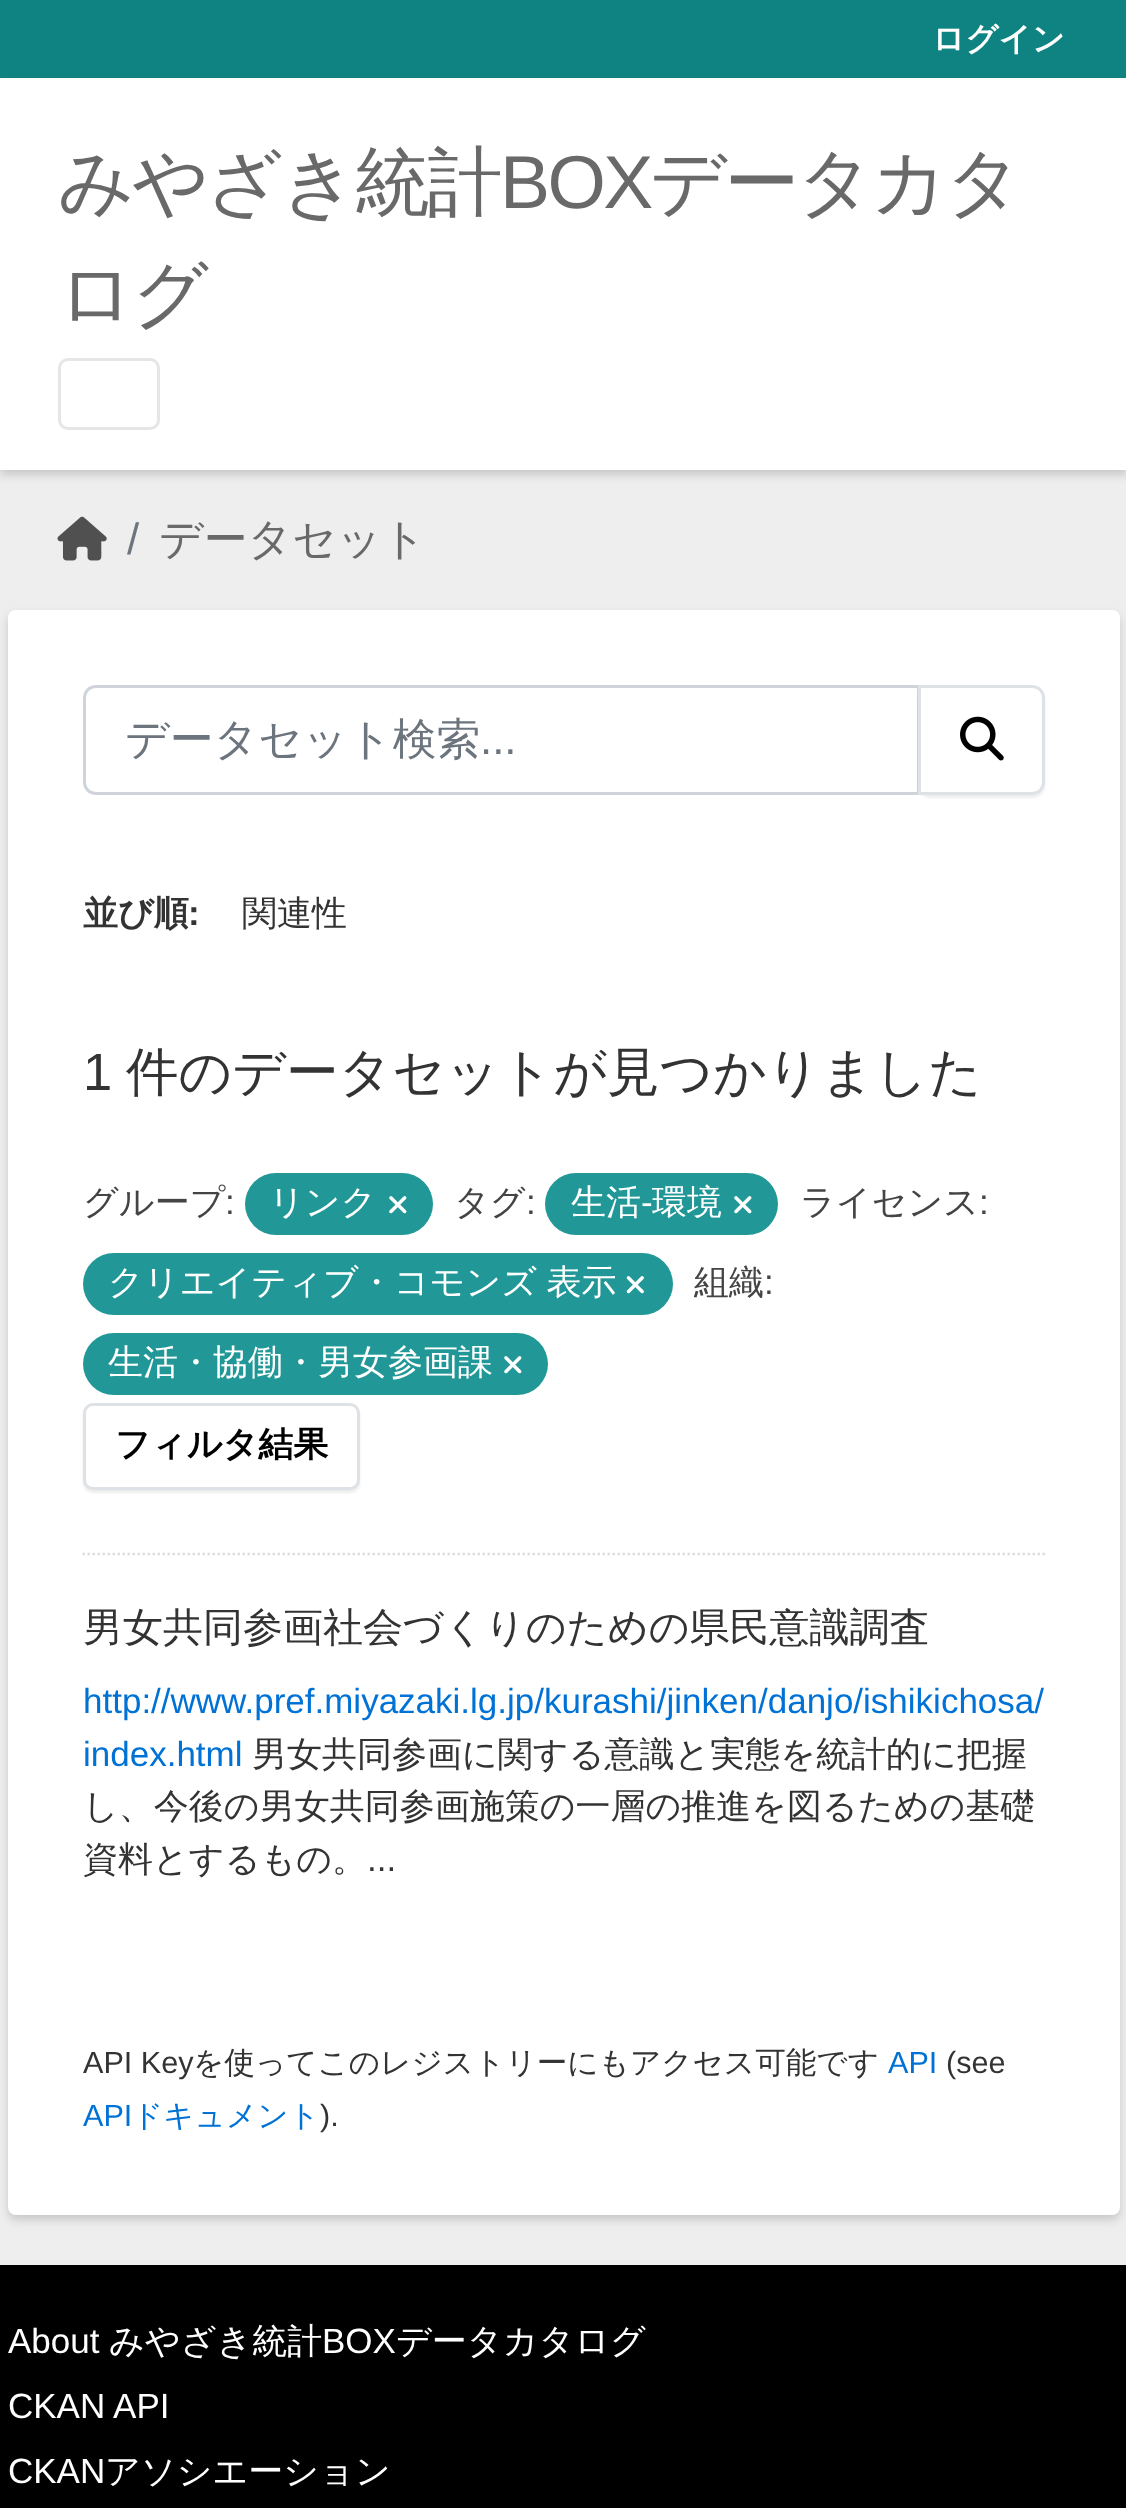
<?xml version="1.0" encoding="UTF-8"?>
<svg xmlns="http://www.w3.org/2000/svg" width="1126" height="2508">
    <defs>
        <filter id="blur1" x="-50%" y="-200%" width="200%" height="500%"><feGaussianBlur stdDeviation="5"/></filter>
        <filter id="blur2" x="-50%" y="-200%" width="200%" height="500%"><feGaussianBlur stdDeviation="1"/></filter>
    </defs>
    <rect width="100%" height="100%" fill="#0F8382"/>
    <text x="932" y="50" font-family="WenQuanYi Zen Hei" font-size="32.5" font-weight="700" fill="#FFFFFF">ログイン</text>
    <rect x="0" y="470" width="1126" height="1795" fill="#EEEEEE"/>
    <rect x="0" y="83" width="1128" height="392" fill="#000000" fill-opacity="0.16" filter="url(#blur1)"/>
    <rect x="0" y="78" width="1126" height="392" fill="#FFFFFF"/>
    <text x="58" y="208" font-family="WenQuanYi Zen Hei" font-size="75" font-weight="500" letter-spacing="-2.5" fill="#696969">みやざき統計</text>
    <text x="500" y="208" font-family="Liberation Sans" font-size="75" letter-spacing="-2.5" fill="#696969">BOX</text>
    <text x="650" y="208" font-family="WenQuanYi Zen Hei" font-size="75" font-weight="500" letter-spacing="-2.5" fill="#696969">データカタ</text>
    <text x="58" y="320" font-family="WenQuanYi Zen Hei" font-size="75" font-weight="500" letter-spacing="-2.5" fill="#696969">ログ</text>
    <rect x="59.5" y="359.5" width="99" height="69" rx="8.5" fill="none" stroke="#E6E6E6" stroke-width="3"/>
    <image x="57" y="516" width="50" height="45" href="img_01.png"/>
    <text x="127" y="554" font-family="Liberation Sans" font-size="43.75" fill="#6C757D">/</text>
    <text x="159" y="554" font-family="WenQuanYi Zen Hei" font-size="43.75" font-weight="500" fill="#696969">データセット</text>
    <rect x="8" y="615" width="1112" height="1605" rx="8" fill="#000000" fill-opacity="0.16" filter="url(#blur1)"/>
    <rect x="8" y="610" width="1112" height="1605" rx="8" fill="#FFFFFF"/>
    <path d="M 82.5 1554 H 1045" fill="none" stroke="#DDDDDD" stroke-width="2.5" stroke-dasharray="2.5 2.5"/>
    <path d="M 96 686.5 H 918.5 V 793.5 H 96 C 89.5 793.5 84.5 788.5 84.5 782 V 698 C 84.5 691.5 89.5 686.5 96 686.5 Z" fill="none" stroke="#CED4DA" stroke-width="3"/>
    <text x="125" y="754" font-family="WenQuanYi Zen Hei" font-size="43.75" font-weight="500" fill="#6C757D">データセット検索</text>
    <text x="480" y="754" font-family="Liberation Sans" font-size="43.75" fill="#6C757D">...</text>
    <rect x="918" y="688" width="127" height="110" rx="13" fill="#000000" fill-opacity="0.07" filter="url(#blur2)"/>
    <path d="M 919.5 686.5 H 1032 C 1038.5 686.5 1043.5 691.5 1043.5 698 V 782 C 1043.5 788.5 1038.5 793.5 1032 793.5 H 919.5 Z" fill="#FFFFFF" stroke="#DEE2E6" stroke-width="3"/>
    <image x="960" y="716" width="44" height="45" href="img_02.png"/>
    <text x="83" y="925" font-family="WenQuanYi Zen Hei" font-size="35" font-weight="700" fill="#333333">並び順</text>
    <text x="188" y="925" font-family="Liberation Sans" font-size="35" font-weight="700" fill="#333333">:</text>
    <text x="242" y="925" font-family="WenQuanYi Zen Hei" font-size="35" font-weight="500" fill="#333333">関連性</text>
    <text x="83" y="1090" font-family="Liberation Sans" font-size="52.5" fill="#333333">1</text>
    <text x="126" y="1090" font-family="WenQuanYi Zen Hei" font-size="52.5" font-weight="500" fill="#333333">件のデータセットが見つかりました</text>
    <text x="83" y="1214" font-family="WenQuanYi Zen Hei" font-size="35" font-weight="500" fill="#444444">グループ</text>
    <text x="225" y="1214" font-family="Liberation Sans" font-size="35" fill="#444444">:</text>
    <rect x="245" y="1173" width="188" height="62" rx="31" fill="#219897"/>
    <text x="269" y="1214" font-family="WenQuanYi Zen Hei" font-size="35" font-weight="500" fill="#FFFFFF">リンク</text>
    <image x="389" y="1196" width="18" height="18" href="img_03.png"/>
    <text x="454" y="1214" font-family="WenQuanYi Zen Hei" font-size="35" font-weight="500" fill="#444444">タグ</text>
    <text x="526" y="1214" font-family="Liberation Sans" font-size="35" fill="#444444">:</text>
    <rect x="545" y="1173" width="233" height="62" rx="31" fill="#219897"/>
    <text x="571" y="1214" font-family="WenQuanYi Zen Hei" font-size="35" font-weight="500" fill="#FFFFFF">生活</text>
    <text x="641" y="1214" font-family="Liberation Sans" font-size="35" fill="#FFFFFF">-</text>
    <text x="652" y="1214" font-family="WenQuanYi Zen Hei" font-size="35" font-weight="500" fill="#FFFFFF">環境</text>
    <image x="734" y="1196" width="18" height="18" href="img_03.png"/>
    <text x="800" y="1214" font-family="WenQuanYi Zen Hei" font-size="35" font-weight="500" fill="#444444">ライセンス</text>
    <text x="979" y="1214" font-family="Liberation Sans" font-size="35" fill="#444444">:</text>
    <rect x="83" y="1253" width="590" height="62" rx="31" fill="#219897"/>
    <text x="108" y="1294" word-spacing="-1" font-family="WenQuanYi Zen Hei" font-size="35" font-weight="500" fill="#FFFFFF">クリエイティブ・コモンズ 表示</text>
    <image x="626" y="1276" width="18" height="18" href="img_04.png"/>
    <text x="694" y="1294" font-family="WenQuanYi Zen Hei" font-size="35" font-weight="500" fill="#444444">組織</text>
    <text x="764" y="1294" font-family="Liberation Sans" font-size="35" fill="#444444">:</text>
    <rect x="83" y="1333" width="465" height="62" rx="31" fill="#219897"/>
    <text x="108" y="1374" font-family="WenQuanYi Zen Hei" font-size="35" font-weight="500" fill="#FFFFFF">生活・協働・男女参画課</text>
    <image x="504" y="1356" width="18" height="18" href="img_03.png"/>
    <rect x="83" y="1405" width="277" height="88" rx="10" fill="#000000" fill-opacity="0.07" filter="url(#blur2)"/>
    <rect x="84.5" y="1404.5" width="274" height="84" rx="8.5" fill="#FFFFFF" stroke="#DEE2E6" stroke-width="3"/>
    <text x="115" y="1456" font-family="WenQuanYi Zen Hei" font-size="35" font-weight="700" fill="#000000">フィルタ結果</text>
    <text x="83" y="1641" font-family="WenQuanYi Zen Hei" font-size="40" font-weight="500" fill="#333333">男女共同参画社会づくりのための県民意識調査</text>
    <text font-family="Liberation Sans" font-size="35" fill="#0072D5">
        <tspan x="83" y="1713">http://www.pref.miyazaki.lg.jp/kurashi/jinken/danjo/ishikichosa/</tspan>
        <tspan x="83" y="1766">index.html</tspan>
    </text>
    <text x="252" y="1766" font-family="WenQuanYi Zen Hei" font-size="35" font-weight="500" fill="#333333">男女共同参画に関する意識と実態を統計的に把握</text>
    <text font-family="WenQuanYi Zen Hei" font-size="35" font-weight="500" fill="#333333">
        <tspan x="83" y="1818">し、今後の男女共同参画施策の一層の推進を図るための基礎</tspan>
        <tspan x="83" y="1871">資料とするもの。</tspan>
    </text>
    <text x="367" y="1871" font-family="Liberation Sans" font-size="35" fill="#333333">...</text>
    <text x="83" y="2073" font-family="Liberation Sans" font-size="30.6" fill="#333333">API Key</text>
    <text x="193" y="2073" font-family="WenQuanYi Zen Hei" font-size="30.6" font-weight="500" fill="#333333">を使ってこのレジストリーにもアクセス可能です</text>
    <text x="888" y="2073" font-family="Liberation Sans" font-size="30.6" fill="#0072D5">API</text>
    <text x="946" y="2073" font-family="Liberation Sans" font-size="30.6" fill="#333333">(see</text>
    <text x="83" y="2126" font-family="Liberation Sans" font-size="30.6" fill="#0072D5">API</text>
    <text x="132" y="2126" font-family="WenQuanYi Zen Hei" font-size="30.6" font-weight="500" fill="#0072D5">ドキュメント</text>
    <text x="320" y="2126" font-family="Liberation Sans" font-size="30.6" fill="#333333">).</text>
    <rect x="0" y="2265" width="1126" height="243" fill="#000000"/>
    <text x="8" y="2353" font-family="Liberation Sans" font-size="35" fill="#FFFFFF">About</text>
    <text x="109" y="2353" font-family="WenQuanYi Zen Hei" font-size="35" font-weight="500" fill="#FFFFFF">みやざき統計</text>
    <text x="322" y="2353" font-family="Liberation Sans" font-size="35" fill="#FFFFFF">BOX</text>
    <text x="396" y="2353" font-family="WenQuanYi Zen Hei" font-size="35" font-weight="500" fill="#FFFFFF">データカタログ</text>
    <text font-family="Liberation Sans" font-size="35" fill="#FFFFFF">
        <tspan x="8" y="2418">CKAN API</tspan>
        <tspan x="8" y="2483">CKAN</tspan>
    </text>
    <text x="105" y="2483" font-family="WenQuanYi Zen Hei" font-size="35" font-weight="500" fill="#FFFFFF">アソシエーション</text>
</svg>
